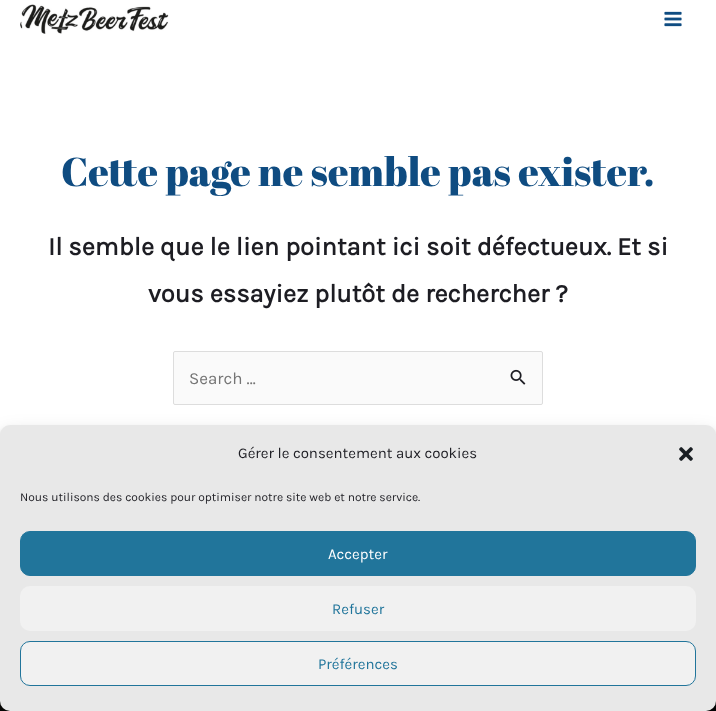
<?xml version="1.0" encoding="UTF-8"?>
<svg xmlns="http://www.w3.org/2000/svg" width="716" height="711">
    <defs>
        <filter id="blur1" x="-50%" y="-200%" width="200%" height="500%"><feGaussianBlur stdDeviation="3"/></filter>
        <filter id="blur2" x="-50%" y="-200%" width="200%" height="500%"><feGaussianBlur stdDeviation="10"/></filter>
    </defs>
    <rect width="100%" height="100%" fill="#FFFFFF"/>
    <image x="20" y="4" width="149" height="30" href="img_01.png"/>
    <image x="664" y="11" width="18" height="16" href="img_02.png"/>
    <text x="61" y="186" font-family="Abril Fatface" font-size="40" fill="#0F4C81">Cette page ne semble pas exister.</text>
    <text x="48" y="255" font-family="Karla" font-size="25.5" font-weight="700" fill="#1D1D23">Il semble que le lien pointant ici soit défectueux. Et si</text>
    <text x="148" y="302" font-family="Karla" font-size="25.5" font-weight="700" fill="#1D1D23">vous essayiez plutôt de rechercher ?</text>
    <rect x="173.5" y="351.5" width="369" height="53" rx="1.5" fill="#FAFAFA" stroke="#DDDDDD"/>
    <text x="189" y="384" font-family="Karla" font-size="17" fill="#757575">Search …</text>
    <image x="510" y="369" width="16" height="16" href="img_03.png"/>
    <image x="0" y="701" width="716" height="10" href="img_04.png"/>
    <rect x="0" y="431" width="716" height="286" rx="10" fill="#000000" fill-opacity="0.23" filter="url(#blur1)"/>
    <rect x="0" y="435" width="716" height="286" rx="10" fill="#000000" fill-opacity="0.19" filter="url(#blur2)"/>
    <rect x="0" y="425" width="716" height="286" rx="10" fill="#E8E8E8"/>
    <text x="238" y="458" font-family="Karla" font-size="15" fill="#1D1D23">Gérer le consentement aux cookies</text>
    <image x="679" y="447" width="14" height="14" href="img_05.png"/>
    <text x="20" y="501" font-family="Karla" font-size="12" fill="#1D1D23">Nous utilisons des cookies pour optimiser notre site web et notre service.</text>
    <rect x="20.5" y="531.5" width="675" height="44" rx="9.5" fill="#21759B" stroke="#21759B"/>
    <text x="328" y="559" font-family="Karla" font-size="15" fill="#FFFFFF">Accepter</text>
    <rect x="20" y="586" width="676" height="45" rx="10" fill="#F1F1F1"/>
    <text x="332" y="614" font-family="Karla" font-size="15" fill="#21759B">Refuser</text>
    <rect x="20.5" y="641.5" width="675" height="44" rx="9.5" fill="#F1F1F1" stroke="#21759B"/>
    <text x="318" y="669" font-family="Karla" font-size="15" fill="#21759B">Préférences</text>
</svg>
